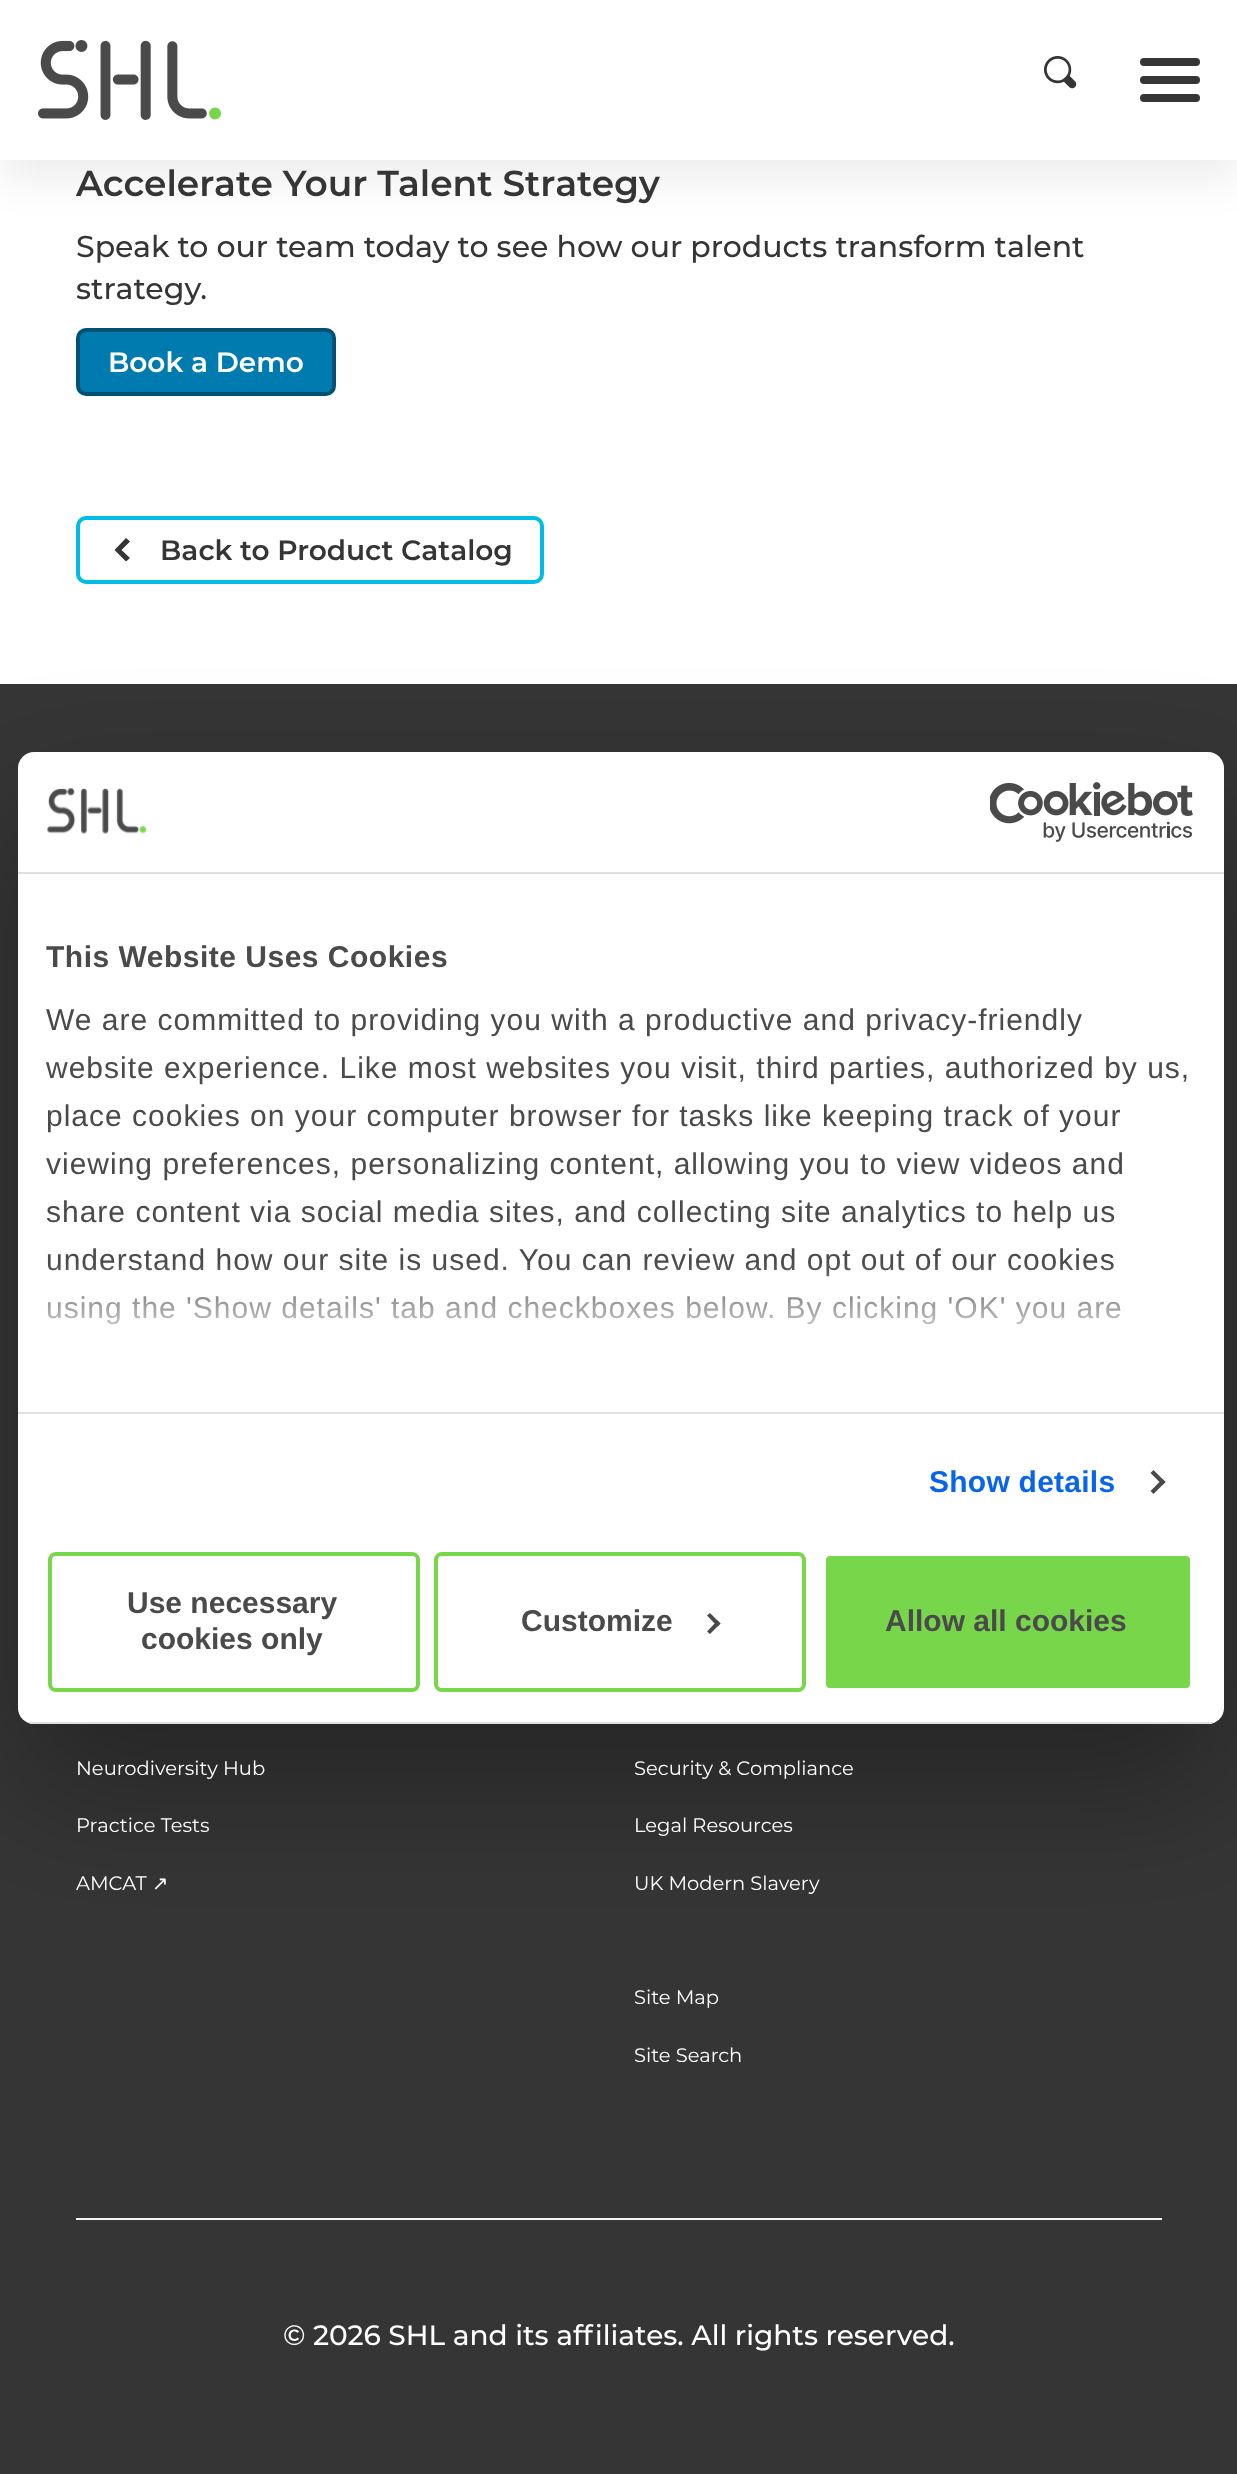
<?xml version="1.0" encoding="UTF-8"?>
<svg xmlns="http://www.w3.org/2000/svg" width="1237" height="2474">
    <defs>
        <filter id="blur1" x="-50%" y="-200%" width="200%" height="500%"><feGaussianBlur stdDeviation="20"/></filter>
        <filter id="blur2" x="-50%" y="-200%" width="200%" height="500%"><feGaussianBlur stdDeviation="68"/></filter>
        <linearGradient id="g1" gradientUnits="userSpaceOnUse" x1="607" y1="1412" x2="607" y2="1262"><stop offset="0" stop-color="#FFFFFF"/><stop offset="0.5" stop-color="#FFFFFF" stop-opacity="0.8"/><stop offset="1" stop-color="#FFFFFF" stop-opacity="0"/></linearGradient>
        <clipPath id="clip1"><rect x="18" y="752" width="1206" height="972" rx="16"/></clipPath>
    </defs>
    <rect width="100%" height="100%" fill="#FFFFFF"/>
    <rect x="0" y="20" width="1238" height="160" fill="#000000" fill-opacity="0.07" filter="url(#blur1)"/>
    <rect x="0" y="0" width="1237" height="160" fill="#FFFFFF"/>
    <image x="38" y="40" width="183" height="80" href="img_01.png"/>
    <image x="1044" y="56" width="33" height="33" href="img_02.png"/>
    <rect x="1140" y="58" width="60" height="8" rx="4" fill="#353535"/>
    <rect x="1140" y="76" width="60" height="8" rx="4" fill="#353535"/>
    <rect x="1140" y="94" width="60" height="8" rx="4" fill="#353535"/>
    <text x="76" y="196" font-family="Montserrat" font-size="36" font-weight="600" fill="#353535">Accelerate Your Talent Strategy</text>
    <text font-family="Montserrat" font-size="30" font-weight="500" fill="#353535">
        <tspan x="76" y="257">Speak to our team today to see how our products transform talent</tspan>
        <tspan x="76" y="299">strategy.</tspan>
    </text>
    <rect x="78" y="330" width="256" height="64" rx="8" fill="#007BB0" stroke="#005275" stroke-width="4"/>
    <text x="108" y="372" font-family="Montserrat" font-size="28" font-weight="600" fill="#FFFFFF">Book a Demo</text>
    <rect x="78" y="518" width="464" height="64" rx="8" fill="none" stroke="#00BCE8" stroke-width="4"/>
    <path d="M 114.5 550 L 126 538 L 130 541.5 L 121.5 550 L 130 558 L 126 561.5 Z" fill="#353535"/>
    <text x="160" y="560" font-family="Montserrat" font-size="28" font-weight="600" fill="#353535">Back to Product Catalog</text>
    <rect x="0" y="684" width="1237" height="1790" fill="#353535"/>
    <rect x="18" y="816" width="1206" height="972" rx="16" fill="#000000" fill-opacity="0.3" filter="url(#blur2)"/>
    <rect x="18" y="752" width="1206" height="972" rx="16" fill="#FFFFFF"/>
    <rect x="18" y="872" width="1206" height="2" fill="#DEE1E2"/>
    <image x="47" y="788" width="100" height="46" href="img_03.png"/>
    <image x="990" y="782" width="203" height="60" href="img_04.png"/>
    <rect x="18" y="1412" width="1206" height="2" fill="#DEE1E2"/>
    <text x="46" y="967" font-family="Liberation Sans" font-size="30" font-weight="700" letter-spacing="0.5" fill="#4A4A4A">This Website Uses Cookies</text>
    <text font-family="Liberation Sans" font-size="30" letter-spacing="1" fill="#4A4A4A">
        <tspan x="46" y="1030">We are committed to providing you with a productive and privacy-friendly</tspan>
        <tspan x="46" y="1078">website experience. Like most websites you visit, third parties, authorized by us,</tspan>
        <tspan x="46" y="1126">place cookies on your computer browser for tasks like keeping track of your</tspan>
        <tspan x="46" y="1174">viewing preferences, personalizing content, allowing you to view videos and</tspan>
        <tspan x="46" y="1222">share content via social media sites, and collecting site analytics to help us</tspan>
        <tspan x="46" y="1270">understand how our site is used. You can review and opt out of our cookies</tspan>
        <tspan x="46" y="1318">using the 'Show details' tab and checkboxes below. By clicking 'OK' you are</tspan>
    </text>
    <rect x="47" y="1264" width="1074" height="61" fill="url(#g1)"/>
    <text x="929" y="1492" font-family="Liberation Sans" font-size="30" font-weight="700" letter-spacing="0.25" fill="#0964ED">Show details</text>
    <path d="M 1153.5 1470 L 1165.5 1482 L 1162.5 1485 L 1150.5 1473 Z" fill="#4A4A4A"/>
    <path d="M 1162.5 1479 L 1165.5 1482 L 1153.5 1494 L 1150.5 1491 Z" fill="#4A4A4A"/>
    <g clip-path="url(#clip1)">
        <rect x="18" y="1722" width="1206" height="2" fill="#DEE1E2"/>
    </g>
    <rect x="50" y="1554" width="368" height="136" rx="6" fill="none" stroke="#78D64B" stroke-width="4"/>
    <text x="127" y="1613" font-family="Liberation Sans" font-size="30" font-weight="700" fill="#4A4A4A">Use necessary</text>
    <text x="141" y="1649" font-family="Liberation Sans" font-size="30" font-weight="700" fill="#4A4A4A">cookies only</text>
    <rect x="436" y="1554" width="368" height="136" rx="6" fill="none" stroke="#78D64B" stroke-width="4"/>
    <text x="521" y="1631" font-family="Liberation Sans" font-size="30" font-weight="700" fill="#4A4A4A">Customize</text>
    <path d="M 710 1613 L 720.5 1623.5 L 717.5 1626.5 L 707 1615.5 Z" fill="#4A4A4A"/>
    <path d="M 717.5 1620.5 L 720.5 1623.5 L 710 1634 L 707 1631.5 Z" fill="#4A4A4A"/>
    <rect x="824" y="1554" width="368" height="136" rx="6" fill="#78D64B" stroke="#FFFFFF" stroke-width="4"/>
    <text x="885" y="1631" font-family="Liberation Sans" font-size="30" font-weight="700" fill="#4A4A4A">Allow all cookies</text>
    <text x="76" y="1775" font-family="Montserrat" font-size="19.5" fill="#FFFFFF">Neurodiversity Hub</text>
    <text x="76" y="1832" font-family="Montserrat" font-size="19.5" fill="#FFFFFF">Practice Tests</text>
    <text x="76" y="1890" font-family="Montserrat" font-size="19.5" fill="#FFFFFF">AMCAT</text>
    <text x="152" y="1890" font-family="DejaVu Sans" font-size="19.5" fill="#FFFFFF">↗</text>
    <text x="634" y="1775" font-family="Montserrat" font-size="19.5" fill="#FFFFFF">Security &amp; Compliance</text>
    <text x="634" y="1832" font-family="Montserrat" font-size="19.5" fill="#FFFFFF">Legal Resources</text>
    <text x="634" y="1890" font-family="Montserrat" font-size="19.5" fill="#FFFFFF">UK Modern Slavery</text>
    <text x="634" y="2004" font-family="Montserrat" font-size="19.5" fill="#FFFFFF">Site Map</text>
    <text x="634" y="2062" font-family="Montserrat" font-size="19.5" fill="#FFFFFF">Site Search</text>
    <rect x="76" y="2218" width="1086" height="2" fill="#F4F4F4"/>
    <text x="283" y="2345" font-family="Montserrat" font-size="28" font-weight="500" fill="#FFFFFF">© 2026 SHL and its affiliates. All rights reserved.</text>
</svg>
